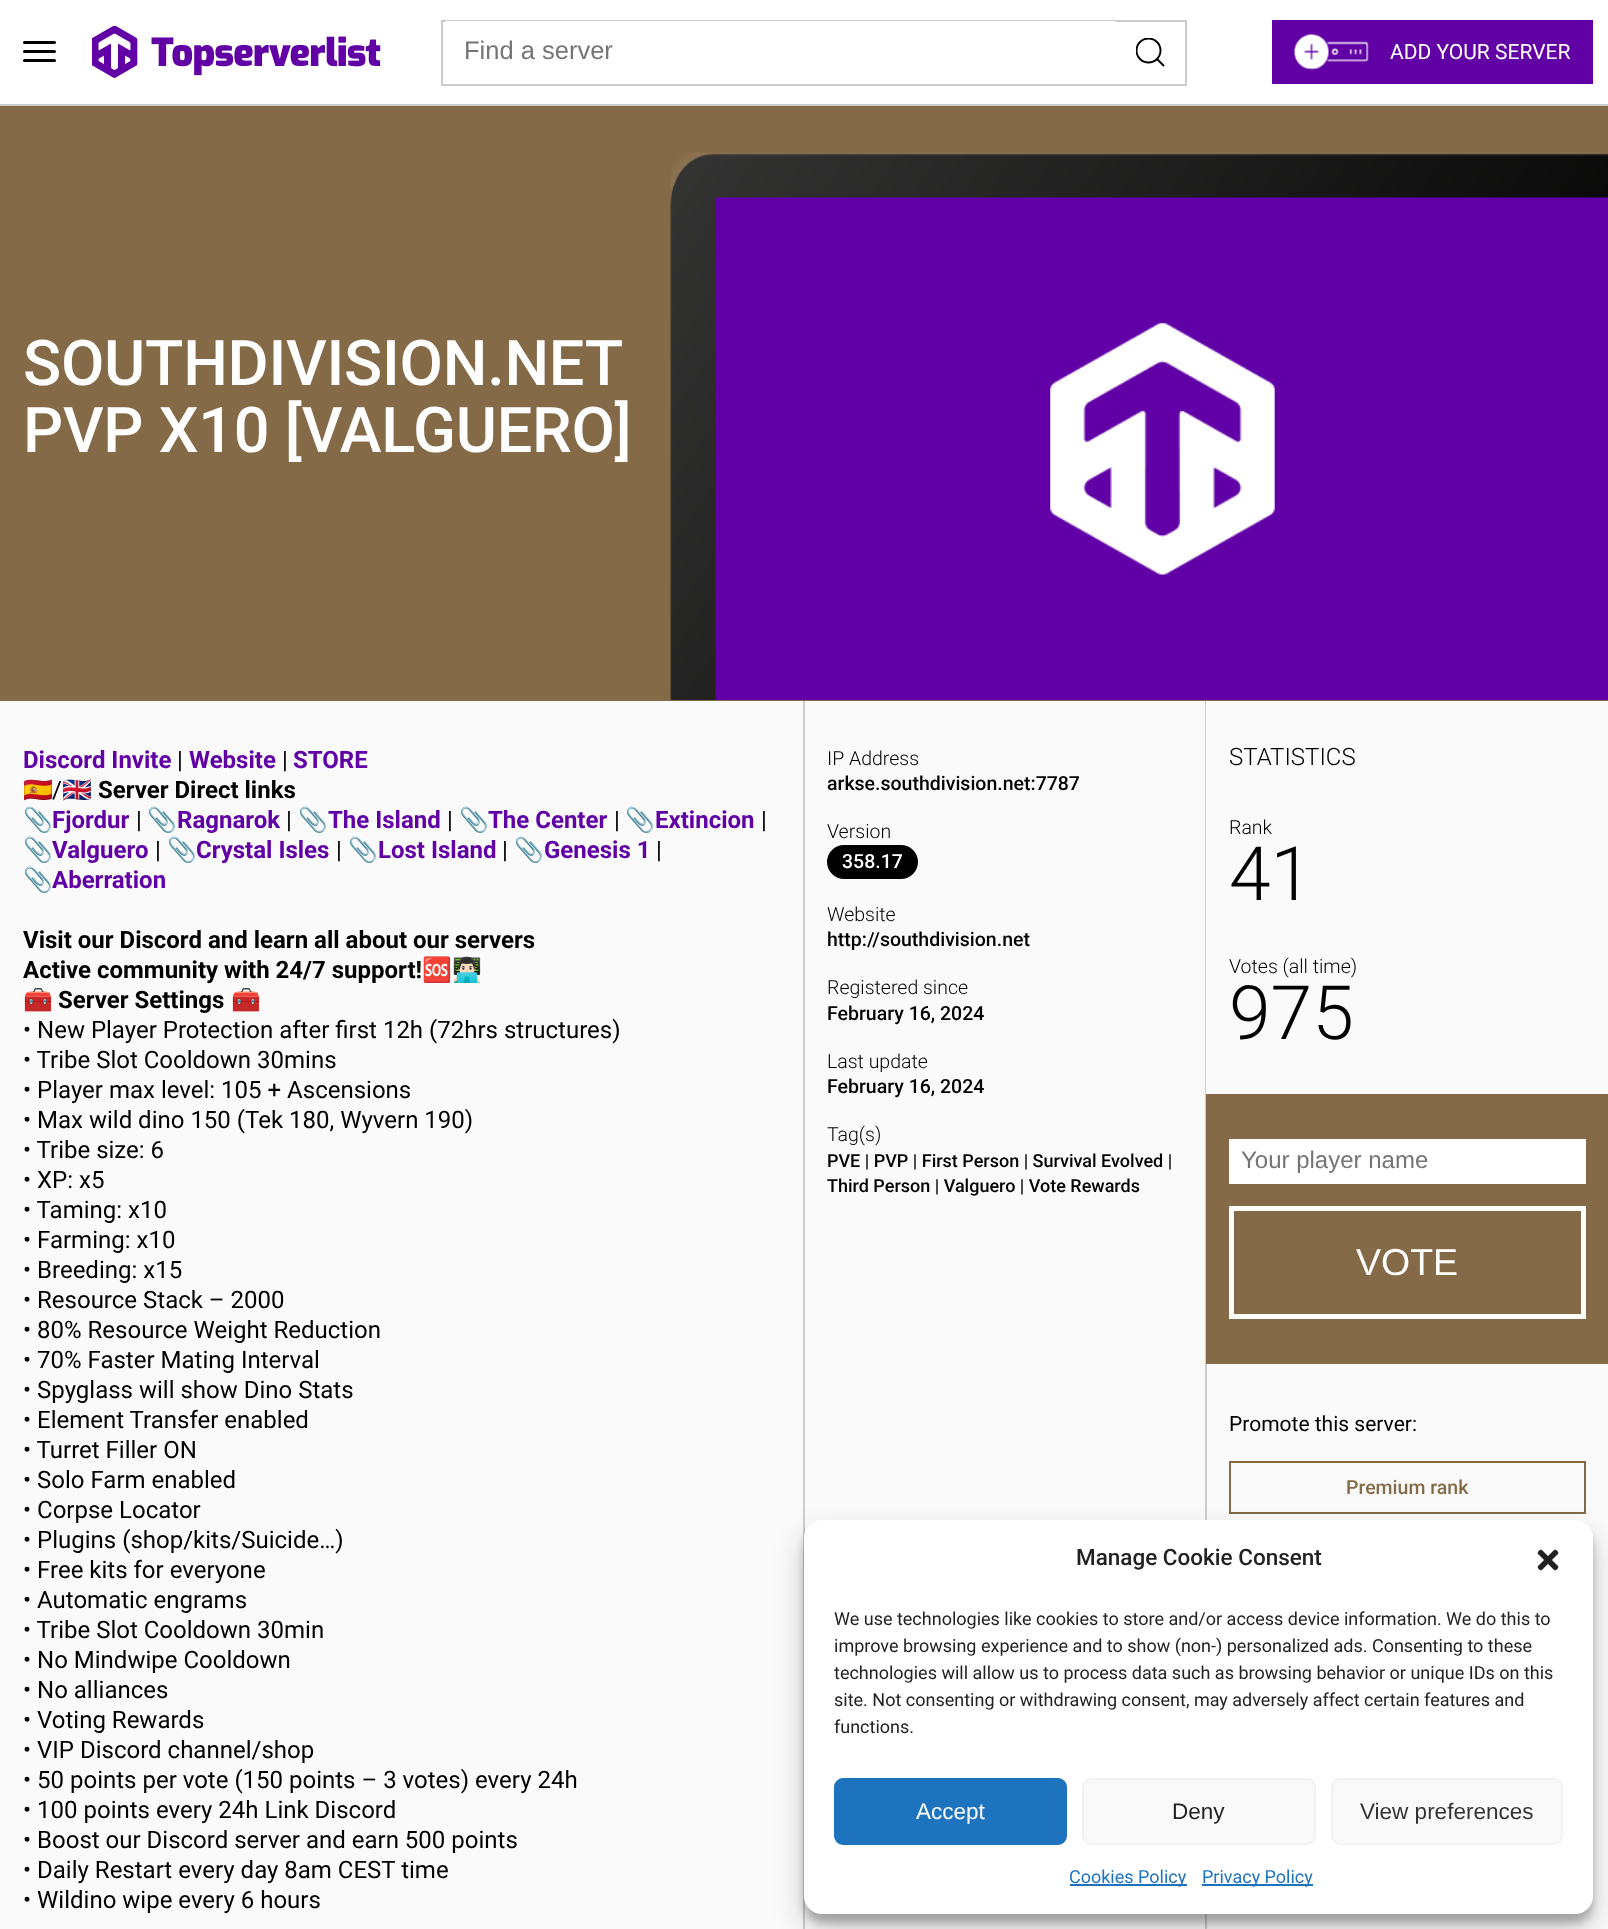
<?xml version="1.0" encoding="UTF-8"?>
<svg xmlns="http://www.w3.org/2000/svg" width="1608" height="1929">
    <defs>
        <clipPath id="clip1"><rect x="1136" y="38" width="30" height="28"/></clipPath>
        <filter id="blur1" x="-50%" y="-200%" width="200%" height="500%"><feGaussianBlur stdDeviation="4.5"/></filter>
        <filter id="blur2" x="-50%" y="-200%" width="200%" height="500%"><feGaussianBlur stdDeviation="15"/></filter>
    </defs>
    <rect width="100%" height="100%" fill="#FAFAFA"/>
    <rect x="0" y="0" width="1608" height="104" fill="#FFFFFF"/>
    <rect x="0" y="104" width="1608" height="2" fill="#CCCCCC"/>
    <rect x="23" y="41" width="33" height="3" rx="1.5" fill="#000000"/>
    <rect x="23" y="50" width="33" height="3" rx="1.5" fill="#000000"/>
    <rect x="23" y="59" width="33" height="3" rx="1.5" fill="#000000"/>
    <image x="92" y="26" width="289" height="52" href="img_01.png"/>
    <rect x="442" y="21" width="744" height="64" fill="none" stroke="#CCCCCC" stroke-width="2"/>
    <rect x="443" y="21" width="675" height="63" rx="5" fill="#FFFFFF"/>
    <text x="464" y="59" font-family="Liberation Sans" font-size="25.5" fill="#757575">Find a server</text>
    <g clip-path="url(#clip1)">
        <circle cx="1148.5" cy="50.5" r="12" fill="none" stroke="#000000" stroke-width="1.9"/>
    </g>
    <path d="M 1157 59 L 1164 66" fill="none" stroke="#000000" stroke-width="1.9"/>
    <rect x="1272" y="20" width="321" height="64" fill="#6000A5"/>
    <image x="1294" y="34" width="75" height="36" href="img_02.png"/>
    <text x="1390" y="59" font-family="Roboto" font-size="21" fill="#FFFFFF">ADD YOUR SERVER</text>
    <rect x="0" y="106" width="1608" height="595" fill="#846A46"/>
    <text font-family="Roboto" font-size="63" font-weight="500" letter-spacing="-0.25" fill="#FFFFFF">
        <tspan x="23" y="385">SOUTHDIVISION.NET</tspan>
        <tspan x="23" y="452">PVP X10 [VALGUERO]</tspan>
    </text>
    <image x="670" y="152" width="938" height="548" href="img_03.png"/>
    <image x="715" y="197" width="893" height="503" href="img_04.png"/>
    <rect x="803" y="701" width="2" height="1228" fill="#CCCCCC"/>
    <text x="23" y="768" font-family="Roboto" font-size="24" font-weight="700" fill="#6000A5">Discord Invite</text>
    <text x="177" y="768" font-family="Roboto" font-size="24" fill="#000000">|</text>
    <text x="189" y="768" font-family="Roboto" font-size="24" font-weight="700" fill="#6000A5">Website</text>
    <text x="282" y="768" font-family="Roboto" font-size="24" fill="#000000">|</text>
    <text x="293" y="768" font-family="Roboto" font-size="24" font-weight="700" fill="#6000A5">STORE</text>
    <text x="23" y="798" font-family="Noto Color Emoji" font-size="24" fill="#000000">🇪🇸</text>
    <text x="52" y="798" font-family="Roboto" font-size="24" fill="#000000">/</text>
    <text x="62" y="798" font-family="Noto Color Emoji" font-size="24" fill="#000000">🇬🇧</text>
    <text x="98" y="798" font-family="Roboto" font-size="24" font-weight="700" fill="#000000">Server Direct links</text>
    <text x="23" y="828" font-family="Noto Color Emoji" font-size="24" font-weight="700" fill="#6000A5">📎</text>
    <text x="52" y="828" font-family="Roboto" font-size="24" font-weight="700" fill="#6000A5">Fjordur</text>
    <text x="136" y="828" font-family="Roboto" font-size="24" fill="#000000">|</text>
    <text x="147" y="828" font-family="Noto Color Emoji" font-size="24" font-weight="700" fill="#6000A5">📎</text>
    <text x="177" y="828" font-family="Roboto" font-size="24" font-weight="700" fill="#6000A5">Ragnarok</text>
    <text x="286" y="828" font-family="Roboto" font-size="24" fill="#000000">|</text>
    <text x="298" y="828" font-family="Noto Color Emoji" font-size="24" font-weight="700" fill="#6000A5">📎</text>
    <text x="328" y="828" font-family="Roboto" font-size="24" font-weight="700" fill="#6000A5">The Island</text>
    <text x="447" y="828" font-family="Roboto" font-size="24" fill="#000000">|</text>
    <text x="459" y="828" font-family="Noto Color Emoji" font-size="24" font-weight="700" fill="#6000A5">📎</text>
    <text x="488" y="828" font-family="Roboto" font-size="24" font-weight="700" fill="#6000A5">The Center</text>
    <text x="614" y="828" font-family="Roboto" font-size="24" fill="#000000">|</text>
    <text x="625" y="828" font-family="Noto Color Emoji" font-size="24" font-weight="700" fill="#6000A5">📎</text>
    <text x="655" y="828" font-family="Roboto" font-size="24" font-weight="700" fill="#6000A5">Extincion</text>
    <text x="761" y="828" font-family="Roboto" font-size="24" fill="#000000">|</text>
    <text x="23" y="858" font-family="Noto Color Emoji" font-size="24" font-weight="700" fill="#6000A5">📎</text>
    <text x="52" y="858" font-family="Roboto" font-size="24" font-weight="700" fill="#6000A5">Valguero</text>
    <text x="155" y="858" font-family="Roboto" font-size="24" fill="#000000">|</text>
    <text x="167" y="858" font-family="Noto Color Emoji" font-size="24" font-weight="700" fill="#6000A5">📎</text>
    <text x="196" y="858" font-family="Roboto" font-size="24" font-weight="700" fill="#6000A5">Crystal Isles</text>
    <text x="336" y="858" font-family="Roboto" font-size="24" fill="#000000">|</text>
    <text x="348" y="858" font-family="Noto Color Emoji" font-size="24" font-weight="700" fill="#6000A5">📎</text>
    <text x="378" y="858" font-family="Roboto" font-size="24" font-weight="700" fill="#6000A5">Lost Island</text>
    <text x="502" y="858" font-family="Roboto" font-size="24" fill="#000000">|</text>
    <text x="514" y="858" font-family="Noto Color Emoji" font-size="24" font-weight="700" fill="#6000A5">📎</text>
    <text x="544" y="858" font-family="Roboto" font-size="24" font-weight="700" fill="#6000A5">Genesis 1</text>
    <text x="656" y="858" font-family="Roboto" font-size="24" fill="#000000">|</text>
    <text x="23" y="888" font-family="Noto Color Emoji" font-size="24" font-weight="700" fill="#6000A5">📎</text>
    <text x="52" y="888" font-family="Roboto" font-size="24" font-weight="700" fill="#6000A5">Aberration</text>
    <text font-family="Roboto" font-size="24" font-weight="700" fill="#000000">
        <tspan x="23" y="948">Visit our Discord and learn all about our servers</tspan>
        <tspan x="23" y="978">Active community with 24/7 support!</tspan>
    </text>
    <text x="422" y="978" font-family="Noto Color Emoji" font-size="24" font-weight="700" fill="#000000">🆘👨🏻‍💻</text>
    <text x="23" y="1008" font-family="Noto Color Emoji" font-size="24" font-weight="700" fill="#000000">🧰</text>
    <text x="58" y="1008" font-family="Roboto" font-size="24" font-weight="700" fill="#000000">Server Settings</text>
    <text x="231" y="1008" font-family="Noto Color Emoji" font-size="24" font-weight="700" fill="#000000">🧰</text>
    <text font-family="Roboto" font-size="24" fill="#000000">
        <tspan x="23" y="1038">• New Player Protection after first 12h (72hrs structures)</tspan>
        <tspan x="23" y="1068">• Tribe Slot Cooldown 30mins</tspan>
        <tspan x="23" y="1098">• Player max level: 105 + Ascensions</tspan>
        <tspan x="23" y="1128">• Max wild dino 150 (Tek 180, Wyvern 190)</tspan>
        <tspan x="23" y="1158">• Tribe size: 6</tspan>
        <tspan x="23" y="1188">• XP: x5</tspan>
        <tspan x="23" y="1218">• Taming: x10</tspan>
        <tspan x="23" y="1248">• Farming: x10</tspan>
        <tspan x="23" y="1278">• Breeding: x15</tspan>
        <tspan x="23" y="1308">• Resource Stack – 2000</tspan>
        <tspan x="23" y="1338">• 80% Resource Weight Reduction</tspan>
        <tspan x="23" y="1368">• 70% Faster Mating Interval</tspan>
        <tspan x="23" y="1398">• Spyglass will show Dino Stats</tspan>
        <tspan x="23" y="1428">• Element Transfer enabled</tspan>
        <tspan x="23" y="1458">• Turret Filler ON</tspan>
        <tspan x="23" y="1488">• Solo Farm enabled</tspan>
        <tspan x="23" y="1518">• Corpse Locator</tspan>
        <tspan x="23" y="1548">• Plugins (shop/kits/Suicide…)</tspan>
        <tspan x="23" y="1578">• Free kits for everyone</tspan>
        <tspan x="23" y="1608">• Automatic engrams</tspan>
        <tspan x="23" y="1638">• Tribe Slot Cooldown 30min</tspan>
        <tspan x="23" y="1668">• No Mindwipe Cooldown</tspan>
        <tspan x="23" y="1698">• No alliances</tspan>
        <tspan x="23" y="1728">• Voting Rewards</tspan>
        <tspan x="23" y="1758">• VIP Discord channel/shop</tspan>
        <tspan x="23" y="1788">• 50 points per vote (150 points – 3 votes) every 24h</tspan>
        <tspan x="23" y="1818">• 100 points every 24h Link Discord</tspan>
        <tspan x="23" y="1848">• Boost our Discord server and earn 500 points</tspan>
        <tspan x="23" y="1878">• Daily Restart every day 8am CEST time</tspan>
        <tspan x="23" y="1908">• Wildino wipe every 6 hours</tspan>
    </text>
    <rect x="1205" y="701" width="2" height="1228" fill="#CCCCCC"/>
    <text x="827" y="765" font-family="Roboto" font-size="19.5" font-weight="300" fill="#000000">IP Address</text>
    <text x="827" y="790" font-family="Roboto" font-size="19.5" font-weight="500" fill="#000000">arkse.southdivision.net:7787</text>
    <text x="827" y="838" font-family="Roboto" font-size="19.5" font-weight="300" fill="#000000">Version</text>
    <rect x="827" y="845" width="91" height="34" rx="17" fill="#000000"/>
    <text x="842" y="868" font-family="Roboto" font-size="19.5" font-weight="500" fill="#FFFFFF">358.17</text>
    <text x="827" y="921" font-family="Roboto" font-size="19.5" font-weight="300" fill="#000000">Website</text>
    <text x="827" y="946" font-family="Roboto" font-size="19.5" font-weight="500" fill="#000000">http://southdivision.net</text>
    <text x="827" y="994" font-family="Roboto" font-size="19.5" font-weight="300" fill="#000000">Registered since</text>
    <text x="827" y="1020" font-family="Roboto" font-size="19.5" font-weight="500" fill="#000000">February 16, 2024</text>
    <text x="827" y="1068" font-family="Roboto" font-size="19.5" font-weight="300" fill="#000000">Last update</text>
    <text x="827" y="1093" font-family="Roboto" font-size="19.5" font-weight="500" fill="#000000">February 16, 2024</text>
    <text x="827" y="1141" font-family="Roboto" font-size="19.5" font-weight="300" fill="#000000">Tag(s)</text>
    <text font-family="Roboto" font-size="18" font-weight="500" fill="#000000">
        <tspan x="827" y="1167">PVE | PVP | First Person | Survival Evolved |</tspan>
        <tspan x="827" y="1192">Third Person | Valguero | Vote Rewards</tspan>
    </text>
    <rect x="1206" y="701" width="1" height="393" fill="#FAFAFA"/>
    <text x="1229" y="765" font-family="Roboto" font-size="24" font-weight="300" fill="#000000">STATISTICS</text>
    <text x="1229" y="834" font-family="Roboto" font-size="19.5" font-weight="300" fill="#000000">Rank</text>
    <text x="1229" y="900" font-family="Roboto" font-size="75" font-weight="300" fill="#000000">41</text>
    <text x="1229" y="973" font-family="Roboto" font-size="19.5" font-weight="300" fill="#000000">Votes (all time)</text>
    <text x="1229" y="1039" font-family="Roboto" font-size="75" font-weight="300" fill="#000000">975</text>
    <rect x="1206" y="1094" width="402" height="270" fill="#846A46"/>
    <rect x="1229" y="1139" width="357" height="45" fill="#FFFFFF"/>
    <text x="1241" y="1168" font-family="Liberation Sans" font-size="24" fill="#757575">Your player name</text>
    <rect x="1231.5" y="1208.5" width="352" height="108" fill="none" stroke="#FFFFFF" stroke-width="5"/>
    <text x="1356" y="1275" font-family="Liberation Sans" font-size="37.5" fill="#FFFFFF">VOTE</text>
    <text x="1229" y="1431" font-family="Roboto" font-size="21" fill="#000000">Promote this server:</text>
    <rect x="1230" y="1462" width="355" height="51" fill="none" stroke="#846A46" stroke-width="2"/>
    <text x="1346" y="1494" font-family="Roboto" font-size="19.5" font-weight="500" fill="#846A46">Premium rank</text>
    <rect x="804" y="1529" width="789" height="394" rx="18" fill="#000000" fill-opacity="0.23" filter="url(#blur1)"/>
    <rect x="804" y="1535" width="789" height="394" rx="18" fill="#000000" fill-opacity="0.19" filter="url(#blur2)"/>
    <rect x="804" y="1520" width="789" height="394" rx="18" fill="#FFFFFF"/>
    <text x="1076" y="1565" font-family="Roboto" font-size="22.5" font-weight="500" fill="#222222">Manage Cookie Consent</text>
    <image x="1537" y="1549" width="22" height="22" href="img_05.png"/>
    <text font-family="Roboto" font-size="18" fill="#222222">
        <tspan x="834" y="1625">We use technologies like cookies to store and/or access device information. We do this to</tspan>
        <tspan x="834" y="1652">improve browsing experience and to show (non-) personalized ads. Consenting to these</tspan>
        <tspan x="834" y="1679">technologies will allow us to process data such as browsing behavior or unique IDs on this</tspan>
        <tspan x="834" y="1706">site. Not consenting or withdrawing consent, may adversely affect certain features and</tspan>
        <tspan x="834" y="1733">functions.</tspan>
    </text>
    <rect x="835" y="1779" width="231" height="65" rx="8" fill="#1E73BE" stroke="#1E73BE" stroke-width="2"/>
    <text x="916" y="1819" font-family="Liberation Sans" font-size="22.5" fill="#FFFFFF">Accept</text>
    <rect x="1083" y="1779" width="232" height="65" rx="8" fill="#F9F9F9" stroke="#F2F2F2" stroke-width="2"/>
    <text x="1172" y="1819" font-family="Liberation Sans" font-size="22.5" fill="#222222">Deny</text>
    <rect x="1332" y="1779" width="230" height="65" rx="8" fill="#F9F9F9" stroke="#F2F2F2" stroke-width="2"/>
    <text x="1360" y="1819" font-family="Liberation Sans" font-size="22.5" fill="#333333">View preferences</text>
    <rect x="1070" y="1884" width="117" height="2" fill="#1E73BE"/>
    <text x="1069" y="1883" font-family="Roboto" font-size="18" fill="#1E73BE">Cookies Policy</text>
    <rect x="1202" y="1884" width="111" height="2" fill="#1E73BE"/>
    <text x="1202" y="1883" font-family="Roboto" font-size="18" fill="#1E73BE">Privacy Policy</text>
</svg>
